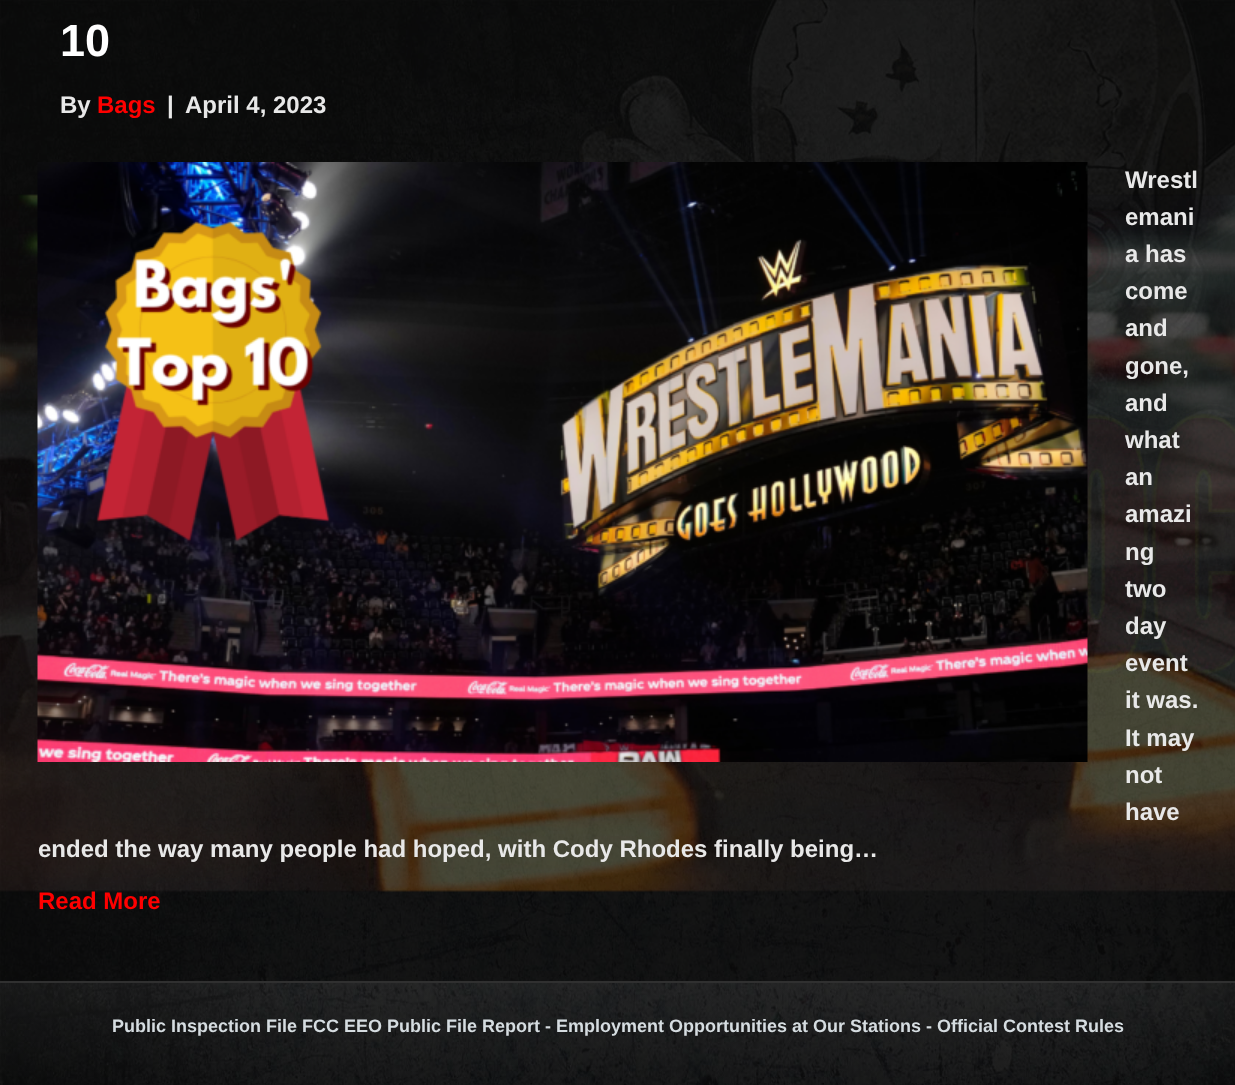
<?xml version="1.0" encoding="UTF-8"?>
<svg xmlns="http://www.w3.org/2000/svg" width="1235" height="1085">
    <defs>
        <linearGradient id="g1" gradientUnits="userSpaceOnUse" x1="618" y1="983" x2="618" y2="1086"><stop offset="0" stop-color="#232323" stop-opacity="0.63"/><stop offset="1" stop-color="#0F0F0F" stop-opacity="0.63"/></linearGradient>
    </defs>
    <rect width="100%" height="100%" fill="#FFFFFF"/>
    <image x="0" y="0" width="1235" height="1085" href="img_01.png"/>
    <image x="0" y="194" width="1235" height="698" href="img_02.png"/>
    <text x="60" y="56" font-family="Liberation Sans" font-size="45" font-weight="700" fill="#FFFFFF">10</text>
    <text x="60" y="113" font-family="Liberation Sans" font-size="24" font-weight="700" fill="#E8E8E8">By</text>
    <text x="97" y="113" font-family="Liberation Sans" font-size="24" font-weight="700" fill="#FF0000">Bags</text>
    <text x="167" y="113" font-family="Liberation Sans" font-size="24" font-weight="700" fill="#E8E8E8">|</text>
    <text x="185" y="113" font-family="Liberation Sans" font-size="24" font-weight="700" fill="#E8E8E8">April 4, 2023</text>
    <image x="37" y="162" width="1051" height="600" href="img_03.png"/>
    <text font-family="Liberation Sans" font-size="24" font-weight="700" fill="#E8E8E8">
        <tspan x="1125" y="188">Wrestl</tspan>
        <tspan x="1125" y="225">emani</tspan>
        <tspan x="1125" y="262">a has</tspan>
        <tspan x="1125" y="299">come</tspan>
        <tspan x="1125" y="336">and</tspan>
        <tspan x="1125" y="374">gone,</tspan>
        <tspan x="1125" y="411">and</tspan>
        <tspan x="1125" y="448">what</tspan>
        <tspan x="1125" y="485">an</tspan>
        <tspan x="1125" y="522">amazi</tspan>
        <tspan x="1125" y="560">ng</tspan>
        <tspan x="1125" y="597">two</tspan>
        <tspan x="1125" y="634">day</tspan>
        <tspan x="1125" y="671">event</tspan>
        <tspan x="1125" y="708">it was.</tspan>
        <tspan x="1125" y="746">It may</tspan>
        <tspan x="1125" y="783">not</tspan>
        <tspan x="1125" y="820">have</tspan>
    </text>
    <text x="38" y="857" font-family="Liberation Sans" font-size="24" font-weight="700" fill="#E8E8E8">ended the way many people had hoped, with Cody Rhodes finally being…</text>
    <text x="38" y="909" font-family="Liberation Sans" font-size="24" font-weight="700" fill="#FF0000">Read More</text>
    <rect x="0" y="983" width="1235" height="102" fill="url(#g1)"/>
    <rect x="0" y="981" width="1235" height="2" fill="#303030"/>
    <text x="112" y="1032" font-family="Liberation Sans" font-size="18" font-weight="700" fill="#D5DCE0">Public Inspection File FCC EEO Public File Report - Employment Opportunities at Our Stations - Official Contest Rules</text>
</svg>
